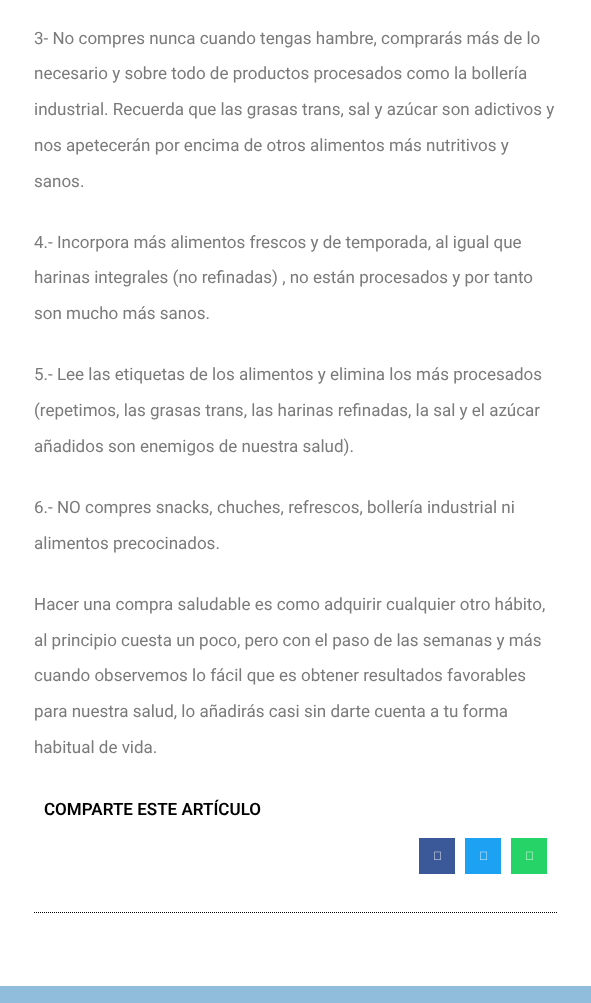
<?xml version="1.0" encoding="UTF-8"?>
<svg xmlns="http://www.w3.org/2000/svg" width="591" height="1003">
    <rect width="100%" height="100%" fill="#FFFFFF"/>
    <text x="34" y="44" font-family="Roboto" font-size="17" fill="#7A7A7A">3- No compres nunca cuando tengas hambre, comprarás más de lo</text>
    <text x="34" y="79" font-family="Roboto" font-size="17" fill="#7A7A7A">necesario y sobre todo de productos procesados como la bollería</text>
    <text x="34" y="115" font-family="Roboto" font-size="17" fill="#7A7A7A">industrial. Recuerda que las grasas trans, sal y azúcar son adictivos y</text>
    <text x="34" y="151" font-family="Roboto" font-size="17" fill="#7A7A7A">nos apetecerán por encima de otros alimentos más nutritivos y</text>
    <text x="34" y="187" font-family="Roboto" font-size="17" fill="#7A7A7A">sanos.</text>
    <text x="34" y="248" font-family="Roboto" font-size="17" fill="#7A7A7A">4.- Incorpora más alimentos frescos y de temporada, al igual que</text>
    <text x="34" y="283" font-family="Roboto" font-size="17" fill="#7A7A7A">harinas integrales (no refinadas) , no están procesados y por tanto</text>
    <text x="34" y="319" font-family="Roboto" font-size="17" fill="#7A7A7A">son mucho más sanos.</text>
    <text x="34" y="380" font-family="Roboto" font-size="17" fill="#7A7A7A">5.- Lee las etiquetas de los alimentos y elimina los más procesados</text>
    <text x="34" y="416" font-family="Roboto" font-size="17" fill="#7A7A7A">(repetimos, las grasas trans, las harinas refinadas, la sal y el azúcar</text>
    <text x="34" y="452" font-family="Roboto" font-size="17" fill="#7A7A7A">añadidos son enemigos de nuestra salud).</text>
    <text x="34" y="513" font-family="Roboto" font-size="17" fill="#7A7A7A">6.- NO compres snacks, chuches, refrescos, bollería industrial ni</text>
    <text x="34" y="549" font-family="Roboto" font-size="17" fill="#7A7A7A">alimentos precocinados.</text>
    <text x="34" y="610" font-family="Roboto" font-size="17" fill="#7A7A7A">Hacer una compra saludable es como adquirir cualquier otro hábito,</text>
    <text x="34" y="646" font-family="Roboto" font-size="17" fill="#7A7A7A">al principio cuesta un poco, pero con el paso de las semanas y más</text>
    <text x="34" y="681" font-family="Roboto" font-size="17" fill="#7A7A7A">cuando observemos lo fácil que es obtener resultados favorables</text>
    <text x="34" y="717" font-family="Roboto" font-size="17" fill="#7A7A7A">para nuestra salud, lo añadirás casi sin darte cuenta a tu forma</text>
    <text x="34" y="753" font-family="Roboto" font-size="17" fill="#7A7A7A">habitual de vida.</text>
    <text x="44" y="815" font-family="Roboto" font-size="17" font-weight="600" fill="#000000">COMPARTE ESTE ARTÍCULO</text>
    <rect x="419" y="838" width="36" height="36" fill="#3B5998"/>
    <image x="434" y="851" width="7" height="9" href="img_01.png"/>
    <rect x="465" y="838" width="36" height="36" fill="#1DA1F2"/>
    <image x="480" y="851" width="7" height="9" href="img_02.png"/>
    <rect x="511" y="838" width="36" height="36" fill="#25D366"/>
    <image x="526" y="851" width="7" height="9" href="img_03.png"/>
    <path d="M 34 912.5 H 557" fill="none" stroke="#000000" stroke-dasharray="1 1"/>
    <rect x="0" y="986" width="591" height="17" fill="#90BDDB"/>
</svg>
